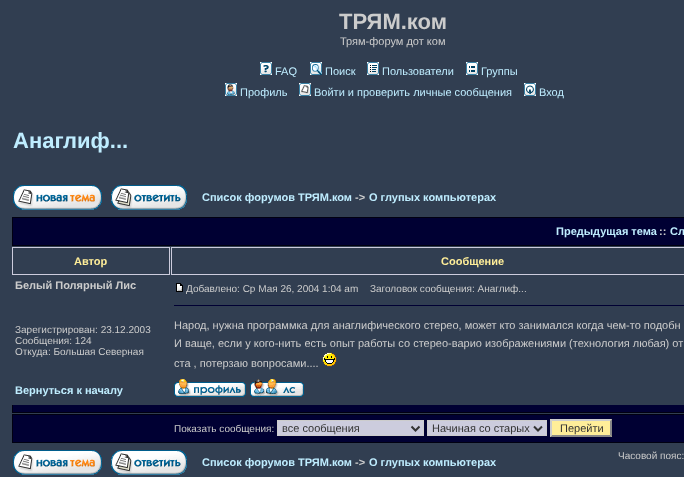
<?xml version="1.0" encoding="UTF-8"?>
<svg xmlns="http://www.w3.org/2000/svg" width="684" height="477">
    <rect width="100%" height="100%" fill="#313E51"/>
    <text x="339" y="29" font-family="Liberation Sans" font-size="22" font-weight="700" fill="#CCCCCC">ТРЯМ.ком</text>
    <text x="340" y="45" font-family="Liberation Sans" font-size="11" fill="#CCCCCC">Трям-форум дот ком</text>
    <image x="260" y="62" width="12" height="13" href="img_01.png"/>
    <text x="275" y="75" font-family="Liberation Sans" font-size="11" fill="#BFEDFF">FAQ</text>
    <image x="310" y="62" width="12" height="13" href="img_02.png"/>
    <text x="325" y="75" font-family="Liberation Sans" font-size="11" fill="#BFEDFF">Поиск</text>
    <image x="367" y="62" width="12" height="13" href="img_03.png"/>
    <text x="382" y="75" font-family="Liberation Sans" font-size="11" fill="#BFEDFF">Пользователи</text>
    <image x="466" y="62" width="12" height="13" href="img_04.png"/>
    <text x="481" y="75" font-family="Liberation Sans" font-size="11" fill="#BFEDFF">Группы</text>
    <image x="225" y="83" width="12" height="13" href="img_05.png"/>
    <text x="240" y="96" font-family="Liberation Sans" font-size="11" fill="#BFEDFF">Профиль</text>
    <image x="299" y="83" width="12" height="13" href="img_06.png"/>
    <text x="314" y="96" font-family="Liberation Sans" font-size="11" fill="#BFEDFF">Войти и проверить личные сообщения</text>
    <image x="524" y="83" width="12" height="13" href="img_07.png"/>
    <text x="539" y="96" font-family="Liberation Sans" font-size="11" fill="#BFEDFF">Вход</text>
    <text x="13" y="148" font-family="Liberation Sans" font-size="22" font-weight="700" fill="#BFEDFF">Анаглиф...</text>
    <image x="13" y="185" width="89" height="25" href="img_08.png"/>
    <image x="111" y="185" width="76" height="25" href="img_09.png"/>
    <text x="202" y="201" font-family="Liberation Sans" font-size="11" font-weight="700" fill="#BFEDFF">Список форумов ТРЯМ.ком</text>
    <text x="355" y="201" font-family="Liberation Sans" font-size="11" font-weight="700" fill="#CCCCCC">-&gt;</text>
    <text x="369" y="201" font-family="Liberation Sans" font-size="11" font-weight="700" fill="#BFEDFF">О глупых компьютерах</text>
    <rect x="12.5" y="217.5" width="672" height="28" fill="#000033" stroke="#000011"/>
    <text x="556" y="235" font-family="Liberation Sans" font-size="11" font-weight="700" fill="#BFEDFF">Предыдущая тема</text>
    <text x="659" y="235" font-family="Liberation Sans" font-size="11" font-weight="700" fill="#CCCCCC">::</text>
    <text x="670" y="235" font-family="Liberation Sans" font-size="11" font-weight="700" fill="#BFEDFF">Сл</text>
    <rect x="12.5" y="247.5" width="157" height="27" fill="none" stroke="#CCCCDD"/>
    <text x="74" y="265" font-family="Liberation Sans" font-size="11" font-weight="700" fill="#FFEE99">Автор</text>
    <rect x="171.5" y="247.5" width="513" height="27" fill="none" stroke="#CCCCDD"/>
    <text x="441" y="265" font-family="Liberation Sans" font-size="11" font-weight="700" fill="#FFEE99">Сообщение</text>
    <text x="15" y="289" font-family="Liberation Sans" font-size="11" font-weight="700" fill="#CCCCCC">Белый Полярный Лис</text>
    <text font-family="Liberation Sans" font-size="10" fill="#CCCCCC">
        <tspan x="15" y="333">Зарегистрирован: 23.12.2003</tspan>
        <tspan x="15" y="344">Сообщения: 124</tspan>
        <tspan x="15" y="355">Откуда: Большая Северная</tspan>
    </text>
    <image x="176" y="283" width="7" height="9" href="img_10.png"/>
    <text x="186" y="292" font-family="Liberation Sans" font-size="10" fill="#CCCCCC">Добавлено: Ср Мая 26, 2004 1:04 am</text>
    <text x="370" y="292" font-family="Liberation Sans" font-size="10" fill="#CCCCCC">Заголовок сообщения: Анаглиф...</text>
    <rect x="174" y="305" width="510" height="1" fill="#000033"/>
    <text font-family="Liberation Sans" font-size="11" fill="#CCCCCC">
        <tspan x="174" y="329">Народ, нужна программка для анаглифического стерео, может кто занимался когда чем-то подобн</tspan>
        <tspan x="174" y="347">И ваще, если у кого-нить есть опыт работы со стерео-варио изображениями (технология любая) от</tspan>
        <tspan x="174" y="367">ста , потерзаю вопросами....</tspan>
    </text>
    <image x="322" y="352" width="15" height="15" href="img_11.png"/>
    <text x="15" y="394" font-family="Liberation Sans" font-size="11" font-weight="700" fill="#BFEDFF">Вернуться к началу</text>
    <image x="174" y="379" width="72" height="18" href="img_12.png"/>
    <image x="250" y="379" width="54" height="18" href="img_13.png"/>
    <rect x="13" y="405" width="671" height="7" fill="#000033"/>
    <rect x="12" y="412" width="672" height="1" fill="#000011"/>
    <rect x="12" y="405" width="1" height="8" fill="#000011"/>
    <rect x="12.5" y="414.5" width="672" height="28" fill="#000033" stroke="#000011"/>
    <text x="174" y="432" font-family="Liberation Sans" font-size="10" fill="#CCCCCC">Показать сообщения:</text>
    <rect x="277.5" y="420.5" width="146" height="15" fill="#CCCCDD" stroke="#CCCCCC"/>
    <path d="M 411.5 426.5 L 415.5 430.5 L 419.5 426.5" fill="none" stroke="#333333" stroke-width="2"/>
    <text x="282" y="432" font-family="Liberation Sans" font-size="11" fill="#333333">все сообщения</text>
    <rect x="427.5" y="420.5" width="119" height="15" fill="#CCCCDD" stroke="#CCCCCC"/>
    <path d="M 534 426.5 L 538 430.5 L 542 426.5" fill="none" stroke="#333333" stroke-width="2"/>
    <text x="432" y="432" font-family="Liberation Sans" font-size="11" fill="#333333">Начиная со старых</text>
    <rect x="550" y="419" width="62" height="18" fill="#FFEE99"/>
    <path d="M 550 419 H 612 L 610 421 H 552 Z" fill="#CCCCCC"/>
    <path d="M 612 419 V 437 L 610 435 V 421 Z" fill="#888888"/>
    <path d="M 612 437 H 550 L 552 435 H 610 Z" fill="#888888"/>
    <path d="M 550 437 V 419 L 552 421 V 435 Z" fill="#CCCCCC"/>
    <text x="560" y="432" font-family="Liberation Sans" font-size="11" fill="#333333">Перейти</text>
    <image x="13" y="450" width="89" height="25" href="img_08.png"/>
    <image x="111" y="450" width="76" height="25" href="img_09.png"/>
    <text x="618" y="459" font-family="Liberation Sans" font-size="10" fill="#CCCCCC">Часовой пояс:</text>
    <text x="202" y="466" font-family="Liberation Sans" font-size="11" font-weight="700" fill="#BFEDFF">Список форумов ТРЯМ.ком</text>
    <text x="355" y="466" font-family="Liberation Sans" font-size="11" font-weight="700" fill="#CCCCCC">-&gt;</text>
    <text x="369" y="466" font-family="Liberation Sans" font-size="11" font-weight="700" fill="#BFEDFF">О глупых компьютерах</text>
</svg>
